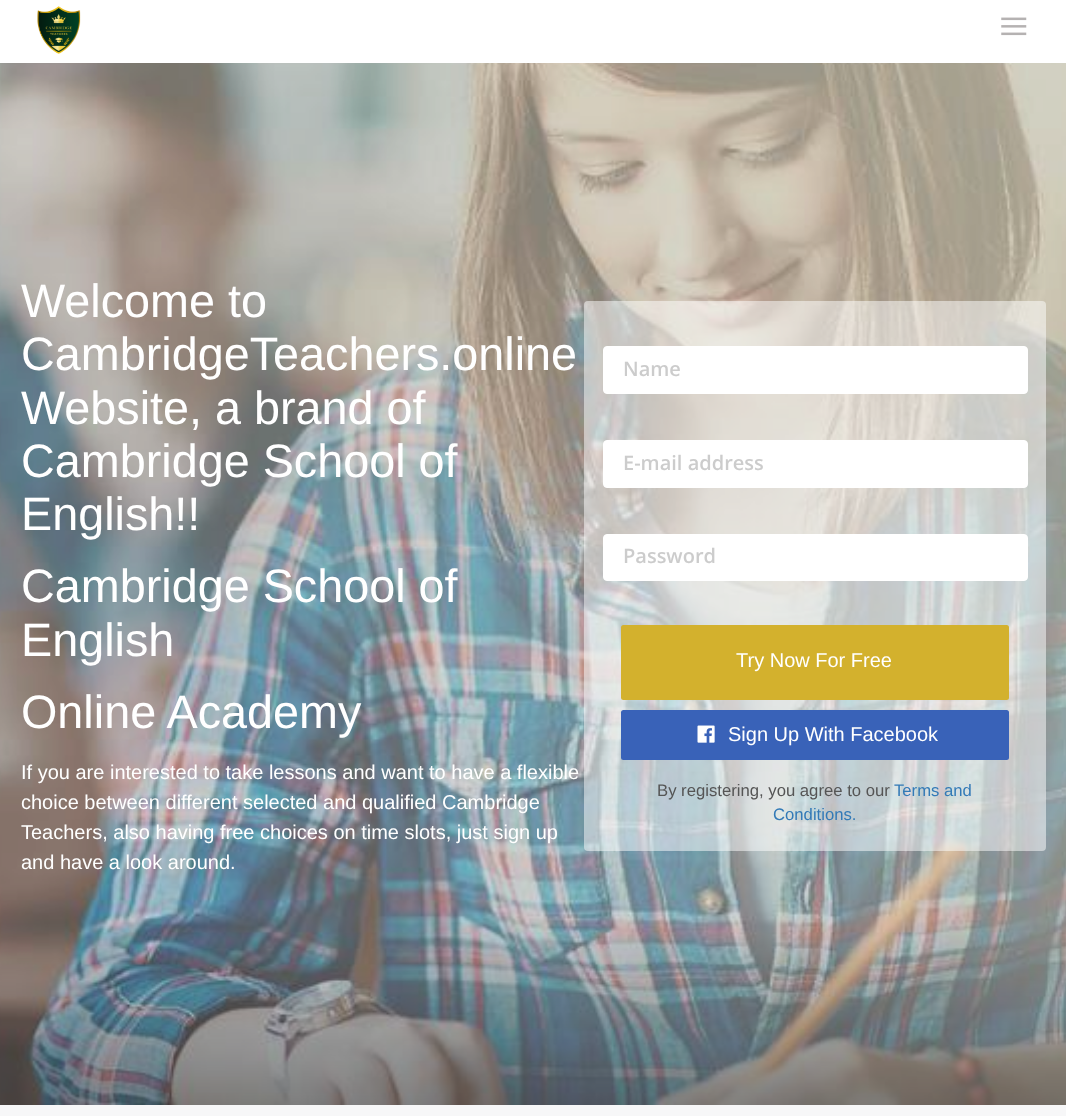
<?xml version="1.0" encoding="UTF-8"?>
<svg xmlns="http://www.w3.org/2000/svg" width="1066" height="1116">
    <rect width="100%" height="100%" fill="#F7F7F8"/>
    <rect x="0" y="0" width="1066" height="63" fill="#FFFFFF"/>
    <image x="37" y="6" width="44" height="48" href="img_01.png"/>
    <image x="1001" y="17" width="26" height="19" href="img_02.png"/>
    <image x="0" y="63" width="1066" height="1042" href="img_03.png"/>
    <text font-family="Liberation Sans" font-size="46.75" fill="#FFFFFF">
        <tspan x="21" y="317">Welcome to</tspan>
        <tspan x="21" y="370">CambridgeTeachers.online</tspan>
        <tspan x="21" y="424">Website, a brand of</tspan>
        <tspan x="21" y="477">Cambridge School of</tspan>
        <tspan x="21" y="530">English!!</tspan>
        <tspan x="21" y="602">Cambridge School of</tspan>
        <tspan x="21" y="656">English</tspan>
        <tspan x="21" y="728">Online Academy</tspan>
    </text>
    <text font-family="Liberation Sans" font-size="20" fill="#FFFFFF">
        <tspan x="21" y="779">If you are interested to take lessons and want to have a flexible</tspan>
        <tspan x="21" y="809">choice between different selected and qualified Cambridge</tspan>
        <tspan x="21" y="839">Teachers, also having free choices on time slots, just sign up</tspan>
        <tspan x="21" y="869">and have a look around.</tspan>
    </text>
    <rect x="584" y="301" width="462" height="550" rx="4" fill="#FFFFFF" fill-opacity="0.5"/>
    <rect x="603.5" y="346.5" width="424" height="47" rx="3.5" fill="#FFFFFF" stroke="#FFFFFF"/>
    <text x="623" y="376" font-family="Open Sans" font-size="20" font-weight="600" fill="#CCCCCC">Name</text>
    <rect x="603.5" y="440.5" width="424" height="47" rx="3.5" fill="#FFFFFF" stroke="#FFFFFF"/>
    <text x="623" y="470" font-family="Open Sans" font-size="20" font-weight="600" fill="#CCCCCC">E-mail address</text>
    <rect x="603.5" y="534.5" width="424" height="46" rx="3.5" fill="#FFFFFF" stroke="#FFFFFF"/>
    <text x="623" y="563" font-family="Open Sans" font-size="20" font-weight="600" fill="#CCCCCC">Password</text>
    <rect x="621" y="625" width="388" height="75" rx="2.5" fill="#D3B12D"/>
    <text x="736" y="667" font-family="Liberation Sans" font-size="20" fill="#FFFFFF">Try Now For Free</text>
    <rect x="621" y="710" width="388" height="50" rx="2.5" fill="#3962B8"/>
    <image x="697" y="725" width="18" height="18" href="img_04.png"/>
    <text x="728" y="741" font-family="Liberation Sans" font-size="20" fill="#FFFFFF">Sign Up With Facebook</text>
    <text x="657" y="796" font-family="Liberation Sans" font-size="16.7" fill="#555555">By registering, you agree to our</text>
    <text x="894" y="796" font-family="Liberation Sans" font-size="16.7" fill="#337AB7">Terms and</text>
    <text x="773" y="820" font-family="Liberation Sans" font-size="16.7" fill="#337AB7">Conditions.</text>
</svg>
